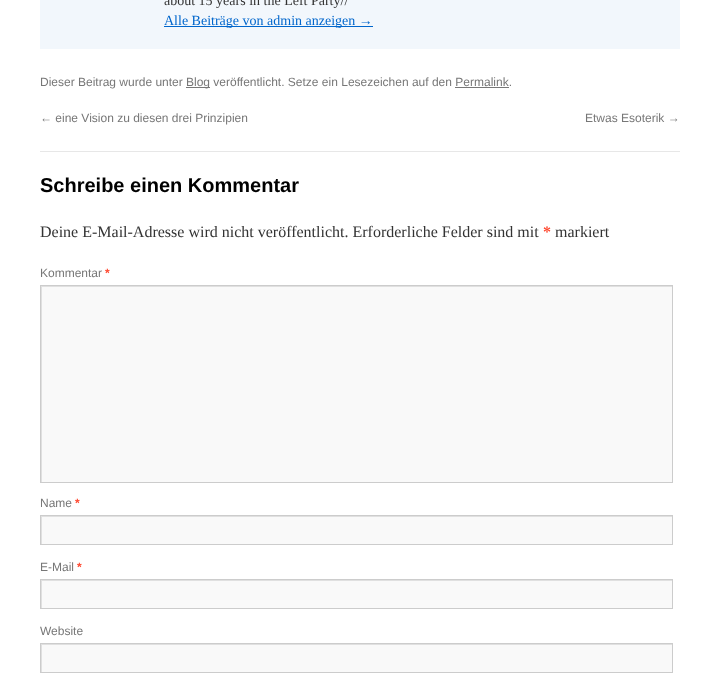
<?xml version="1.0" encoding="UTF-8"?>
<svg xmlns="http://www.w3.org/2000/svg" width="705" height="675">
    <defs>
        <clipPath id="clip1"><rect x="41" y="286" width="631" height="196"/></clipPath>
        <clipPath id="clip2"><rect x="41" y="516" width="631" height="28"/></clipPath>
        <clipPath id="clip3"><rect x="41" y="580" width="631" height="28"/></clipPath>
        <clipPath id="clip4"><rect x="41" y="644" width="631" height="28"/></clipPath>
    </defs>
    <rect width="100%" height="100%" fill="#FFFFFF"/>
    <rect x="40" y="0" width="640" height="49" fill="#F2F7FC"/>
    <text x="164" y="5" font-family="Liberation Serif" font-size="14" fill="#333333">about 15 years in the Left Party//</text>
    <rect x="164" y="26" width="209" height="1" fill="#0066CC"/>
    <text x="164" y="25" font-family="Liberation Serif" font-size="14" fill="#0066CC">Alle Beiträge von admin anzeigen →</text>
    <text x="40" y="86" font-family="Liberation Sans" font-size="12" fill="#777777">Dieser Beitrag wurde unter</text>
    <rect x="186" y="87" width="24" height="1" fill="#777777"/>
    <text x="186" y="86" font-family="Liberation Sans" font-size="12" fill="#777777">Blog veröffentlicht. Setze ein Lesezeichen auf den Permalink.</text>
    <rect x="455" y="87" width="54" height="1" fill="#777777"/>
    <text x="40" y="122" font-family="Liberation Sans" font-size="12" fill="#777777">← eine Vision zu diesen drei Prinzipien</text>
    <text x="585" y="122" font-family="Liberation Sans" font-size="12" fill="#777777">Etwas Esoterik →</text>
    <rect x="40" y="151" width="640" height="1" fill="#E7E7E7"/>
    <text x="40" y="192" font-family="Liberation Sans" font-size="20" font-weight="700" fill="#000000">Schreibe einen Kommentar</text>
    <text x="40" y="237" font-family="Liberation Serif" font-size="16" fill="#333333">Deine E-Mail-Adresse wird nicht veröffentlicht. Erforderliche Felder sind mit</text>
    <text x="543" y="237" font-family="Liberation Serif" font-size="16" font-weight="700" fill="#FF4B33">*</text>
    <text x="555" y="237" font-family="Liberation Serif" font-size="16" fill="#333333">markiert</text>
    <text x="40" y="277" font-family="Liberation Sans" font-size="12" fill="#777777">Kommentar</text>
    <text x="105" y="277" font-family="Liberation Sans" font-size="12" font-weight="700" fill="#FF4B33">*</text>
    <rect x="42" y="287" width="630" height="195" fill="#F9F9F9"/>
    <g clip-path="url(#clip1)">
        <path d="M -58 187 H 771 V 581 H -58 Z M 42 287 H 673 V 483 H 42 Z" fill="#E0E0E0" fill-rule="evenodd"/>
    </g>
    <rect x="40.5" y="285.5" width="632" height="197" fill="none" stroke="#CCCCCC"/>
    <text x="40" y="507" font-family="Liberation Sans" font-size="12" fill="#777777">Name</text>
    <text x="75" y="507" font-family="Liberation Sans" font-size="12" font-weight="700" fill="#FF4B33">*</text>
    <rect x="42" y="517" width="630" height="27" fill="#F9F9F9"/>
    <g clip-path="url(#clip2)">
        <path d="M -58 417 H 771 V 643 H -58 Z M 42 517 H 673 V 545 H 42 Z" fill="#E0E0E0" fill-rule="evenodd"/>
    </g>
    <rect x="40.5" y="515.5" width="632" height="29" fill="none" stroke="#CCCCCC"/>
    <text x="40" y="571" font-family="Liberation Sans" font-size="12" fill="#777777">E-Mail</text>
    <text x="77" y="571" font-family="Liberation Sans" font-size="12" font-weight="700" fill="#FF4B33">*</text>
    <rect x="42" y="581" width="630" height="27" fill="#F9F9F9"/>
    <g clip-path="url(#clip3)">
        <path d="M -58 481 H 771 V 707 H -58 Z M 42 581 H 673 V 609 H 42 Z" fill="#E0E0E0" fill-rule="evenodd"/>
    </g>
    <rect x="40.5" y="579.5" width="632" height="29" fill="none" stroke="#CCCCCC"/>
    <text x="40" y="635" font-family="Liberation Sans" font-size="12" fill="#777777">Website</text>
    <rect x="42" y="645" width="630" height="27" fill="#F9F9F9"/>
    <g clip-path="url(#clip4)">
        <path d="M -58 545 H 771 V 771 H -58 Z M 42 645 H 673 V 673 H 42 Z" fill="#E0E0E0" fill-rule="evenodd"/>
    </g>
    <rect x="40.5" y="643.5" width="632" height="29" fill="none" stroke="#CCCCCC"/>
</svg>
